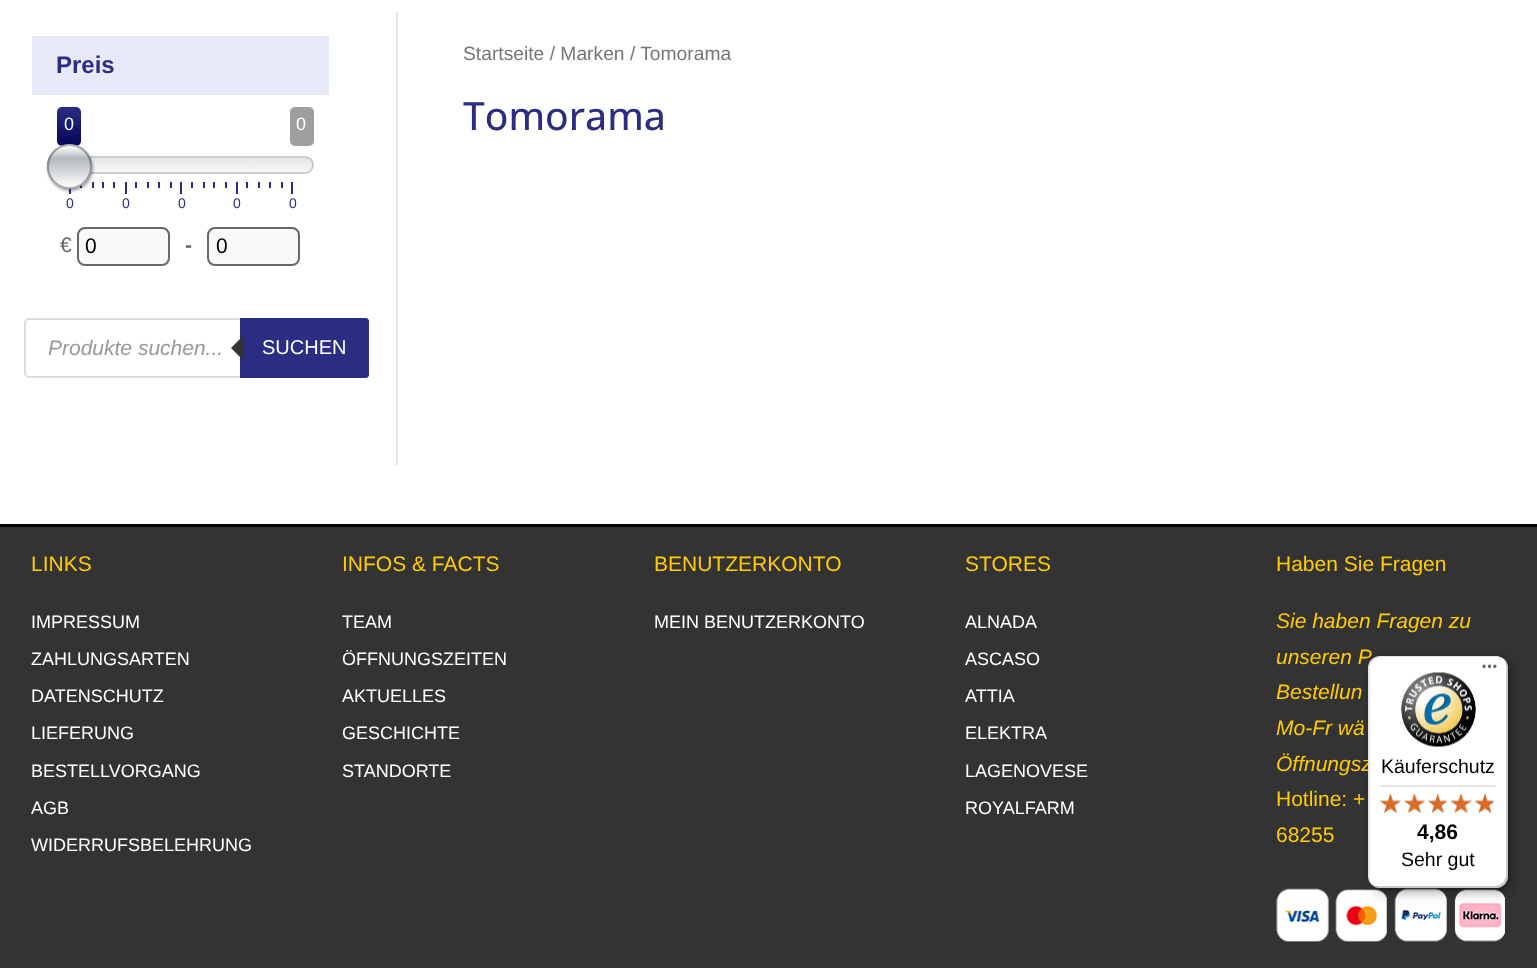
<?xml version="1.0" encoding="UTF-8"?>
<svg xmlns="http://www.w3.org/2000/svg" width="1537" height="968">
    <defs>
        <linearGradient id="g1" gradientUnits="userSpaceOnUse" x1="69" y1="107" x2="69" y2="146"><stop offset="0" stop-color="#2A2D82"/><stop offset="1" stop-color="#02055A"/></linearGradient>
        <clipPath id="clip1"><rect x="47" y="156" width="267" height="18" rx="9"/></clipPath>
        <linearGradient id="g2" gradientUnits="userSpaceOnUse" x1="180" y1="150" x2="180" y2="180"><stop offset="0" stop-color="#DDDDDD"/><stop offset="1" stop-color="#FFFFFF"/></linearGradient>
        <filter id="blur1" x="-50%" y="-200%" width="200%" height="500%"><feGaussianBlur stdDeviation="1.5"/></filter>
        <clipPath id="clip2"><rect x="47" y="144" width="45" height="45" rx="22.5"/></clipPath>
        <linearGradient id="g3" gradientUnits="userSpaceOnUse" x1="69" y1="104" x2="69" y2="146"><stop offset="0" stop-color="#FFFFFF"/><stop offset="0.3" stop-color="#B4B9BE"/><stop offset="1" stop-color="#FFFFFF"/></linearGradient>
        <linearGradient id="g4" gradientUnits="userSpaceOnUse" x1="69" y1="146" x2="69" y2="188"><stop offset="0" stop-color="#FFFFFF"/><stop offset="0.3" stop-color="#B4B9BE"/><stop offset="1" stop-color="#FFFFFF"/></linearGradient>
        <linearGradient id="g5" gradientUnits="userSpaceOnUse" x1="69" y1="188" x2="69" y2="230"><stop offset="0" stop-color="#FFFFFF"/><stop offset="0.3" stop-color="#B4B9BE"/><stop offset="1" stop-color="#FFFFFF"/></linearGradient>
        <filter id="blur2" x="-50%" y="-200%" width="200%" height="500%"><feGaussianBlur stdDeviation="6"/></filter>
    </defs>
    <rect width="100%" height="100%" fill="#FFFFFF"/>
    <rect x="396" y="12" width="2" height="453" fill="#E2E2E2"/>
    <rect x="32" y="36" width="297" height="59" fill="#E7E8F8"/>
    <text x="56" y="73" font-family="Liberation Sans" font-size="24" font-weight="700" fill="#2A2D82">Preis</text>
    <rect x="57" y="107" width="24" height="39" rx="5" fill="url(#g1)"/>
    <text x="64" y="130" font-family="Liberation Sans" font-size="18" fill="#FFFFFF">0</text>
    <rect x="290" y="107" width="24" height="39" rx="5" fill="#9F9F9F"/>
    <text x="296" y="130" font-family="Liberation Sans" font-size="18" fill="#FFFFFF">0</text>
    <g clip-path="url(#clip1)">
        <rect x="47" y="158" width="267" height="15" fill="url(#g2)"/>
    </g>
    <rect x="48" y="157" width="265" height="16" rx="8" fill="none" stroke="#CCCCCC" stroke-width="2"/>
    <rect x="69" y="182" width="2" height="12" fill="#2A2D82"/>
    <rect x="80" y="182" width="2" height="6" fill="#2A2D82"/>
    <rect x="92" y="182" width="2" height="6" fill="#2A2D82"/>
    <rect x="48" y="146" width="45" height="45" rx="22.5" fill="#000000" fill-opacity="0.2" filter="url(#blur1)"/>
    <circle cx="69.5" cy="166.5" r="21.5" fill="none" stroke="#000000" stroke-opacity="0.3" stroke-width="2"/>
    <rect x="48" y="146" width="45" height="45" rx="22.5" fill="#000000" fill-opacity="0.2" filter="url(#blur1)"/>
    <g clip-path="url(#clip2)">
        <rect x="60" y="144" width="19" height="2" fill="url(#g3)"/>
        <rect x="47" y="146" width="45" height="42" fill="url(#g4)"/>
        <rect x="63" y="188" width="13" height="1" fill="url(#g5)"/>
    </g>
    <circle cx="69.5" cy="166.5" r="21.5" fill="none" stroke="#000000" stroke-opacity="0.3" stroke-width="2"/>
    <rect x="102" y="182" width="2" height="6" fill="#2A2D82"/>
    <rect x="113" y="182" width="2" height="6" fill="#2A2D82"/>
    <rect x="125" y="182" width="2" height="12" fill="#2A2D82"/>
    <rect x="135" y="182" width="2" height="6" fill="#2A2D82"/>
    <rect x="147" y="182" width="2" height="6" fill="#2A2D82"/>
    <rect x="158" y="182" width="2" height="6" fill="#2A2D82"/>
    <rect x="170" y="182" width="2" height="6" fill="#2A2D82"/>
    <rect x="180" y="182" width="2" height="12" fill="#2A2D82"/>
    <rect x="191" y="182" width="2" height="6" fill="#2A2D82"/>
    <rect x="203" y="182" width="2" height="6" fill="#2A2D82"/>
    <rect x="213" y="182" width="2" height="6" fill="#2A2D82"/>
    <rect x="225" y="182" width="2" height="6" fill="#2A2D82"/>
    <rect x="236" y="182" width="2" height="12" fill="#2A2D82"/>
    <rect x="246" y="182" width="2" height="6" fill="#2A2D82"/>
    <rect x="258" y="182" width="2" height="6" fill="#2A2D82"/>
    <rect x="269" y="182" width="2" height="6" fill="#2A2D82"/>
    <rect x="281" y="182" width="2" height="6" fill="#2A2D82"/>
    <rect x="291" y="182" width="2" height="12" fill="#2A2D82"/>
    <text x="66" y="208" font-family="Liberation Sans" font-size="14" fill="#2A2D82">0</text>
    <text x="122" y="208" font-family="Liberation Sans" font-size="14" fill="#2A2D82">0</text>
    <text x="178" y="208" font-family="Liberation Sans" font-size="14" fill="#2A2D82">0</text>
    <text x="233" y="208" font-family="Liberation Sans" font-size="14" fill="#2A2D82">0</text>
    <text x="289" y="208" font-family="Liberation Sans" font-size="14" fill="#2A2D82">0</text>
    <text x="60" y="252" font-family="Liberation Sans" font-size="21" fill="#666666">€</text>
    <rect x="78" y="228" width="91" height="37" rx="7" fill="#F9F9F9" stroke="#6E6666" stroke-width="2"/>
    <text x="85" y="253" font-family="Liberation Sans" font-size="21" fill="#000000">0</text>
    <text x="185" y="252" font-family="Liberation Sans" font-size="21" font-weight="700" fill="#666666">-</text>
    <rect x="208" y="228" width="91" height="37" rx="7" fill="#F9F9F9" stroke="#6E6666" stroke-width="2"/>
    <text x="216" y="253" font-family="Liberation Sans" font-size="21" fill="#000000">0</text>
    <rect x="25" y="319" width="343" height="58" rx="4" fill="none" stroke="#DDDDDD" stroke-width="2"/>
    <text x="48" y="355" font-family="Liberation Sans" font-size="21" font-style="italic" fill="#999999">Produkte suchen...</text>
    <path d="M 240 318 H 366 C 367.5 318 369 319.5 369 321 V 375 C 369 376.5 367.5 378 366 378 H 240 Z" fill="#2A2D82"/>
    <path d="M 243 336 V 360 L 231 348 Z" fill="#333333"/>
    <text x="262" y="354" font-family="Liberation Sans" font-size="20" fill="#FFFFFF">SUCHEN</text>
    <text x="463" y="60" font-family="Liberation Sans" font-size="19.25" fill="#767676">Startseite / Marken / Tomorama</text>
    <text x="463" y="130" font-family="Open Sans" font-size="39" font-weight="500" fill="#2A2D82">Tomorama</text>
    <rect x="0" y="527" width="1537" height="441" fill="#333333"/>
    <rect x="0" y="524" width="1537" height="3" fill="#000000"/>
    <text x="31" y="571" font-family="Liberation Sans" font-size="21" fill="#FFCC00">LINKS</text>
    <text x="31" y="628" font-family="Liberation Sans" font-size="18" fill="#FFFFFF">IMPRESSUM</text>
    <text x="31" y="665" font-family="Liberation Sans" font-size="18" fill="#FFFFFF">ZAHLUNGSARTEN</text>
    <text x="31" y="702" font-family="Liberation Sans" font-size="18" fill="#FFFFFF">DATENSCHUTZ</text>
    <text x="31" y="739" font-family="Liberation Sans" font-size="18" fill="#FFFFFF">LIEFERUNG</text>
    <text x="31" y="777" font-family="Liberation Sans" font-size="18" fill="#FFFFFF">BESTELLVORGANG</text>
    <text x="31" y="814" font-family="Liberation Sans" font-size="18" fill="#FFFFFF">AGB</text>
    <text x="31" y="851" font-family="Liberation Sans" font-size="18" fill="#FFFFFF">WIDERRUFSBELEHRUNG</text>
    <text x="342" y="571" font-family="Liberation Sans" font-size="21" fill="#FFCC00">INFOS &amp; FACTS</text>
    <text x="342" y="628" font-family="Liberation Sans" font-size="18" fill="#FFFFFF">TEAM</text>
    <text x="342" y="665" font-family="Liberation Sans" font-size="18" fill="#FFFFFF">ÖFFNUNGSZEITEN</text>
    <text x="342" y="702" font-family="Liberation Sans" font-size="18" fill="#FFFFFF">AKTUELLES</text>
    <text x="342" y="739" font-family="Liberation Sans" font-size="18" fill="#FFFFFF">GESCHICHTE</text>
    <text x="342" y="777" font-family="Liberation Sans" font-size="18" fill="#FFFFFF">STANDORTE</text>
    <text x="654" y="571" font-family="Liberation Sans" font-size="21" fill="#FFCC00">BENUTZERKONTO</text>
    <text x="654" y="628" font-family="Liberation Sans" font-size="18" fill="#FFFFFF">MEIN BENUTZERKONTO</text>
    <text x="965" y="571" font-family="Liberation Sans" font-size="21" fill="#FFCC00">STORES</text>
    <text x="965" y="628" font-family="Liberation Sans" font-size="18" fill="#FFFFFF">ALNADA</text>
    <text x="965" y="665" font-family="Liberation Sans" font-size="18" fill="#FFFFFF">ASCASO</text>
    <text x="965" y="702" font-family="Liberation Sans" font-size="18" fill="#FFFFFF">ATTIA</text>
    <text x="965" y="739" font-family="Liberation Sans" font-size="18" fill="#FFFFFF">ELEKTRA</text>
    <text x="965" y="777" font-family="Liberation Sans" font-size="18" fill="#FFFFFF">LAGENOVESE</text>
    <text x="965" y="814" font-family="Liberation Sans" font-size="18" fill="#FFFFFF">ROYALFARM</text>
    <text x="1276" y="571" font-family="Liberation Sans" font-size="21" fill="#FFCC00">Haben Sie Fragen</text>
    <text font-family="Liberation Sans" font-size="21" font-style="italic" fill="#FFCC00">
        <tspan x="1276" y="628">Sie haben Fragen zu</tspan>
        <tspan x="1276" y="664">unseren P</tspan>
        <tspan x="1276" y="699">Bestellun</tspan>
        <tspan x="1276" y="735">Mo-Fr wä</tspan>
        <tspan x="1276" y="771">Öffnungsz</tspan>
    </text>
    <text font-family="Liberation Sans" font-size="21" fill="#FFCC00">
        <tspan x="1276" y="806">Hotline: +</tspan>
        <tspan x="1276" y="842">68255</tspan>
    </text>
    <image x="1276" y="888" width="229" height="54" href="img_01.png"/>
    <rect x="1373" y="660" width="139" height="233" rx="12" fill="#000000" fill-opacity="0.15" filter="url(#blur2)"/>
    <rect x="1370" y="657" width="139" height="233" rx="12" fill="#000000" fill-opacity="0.15" filter="url(#blur1)"/>
    <path d="M 1382 657 H 1497 C 1500 657 1502 658 1504 659 C 1502 657 1499 656 1496 656 H 1380 C 1373 656 1368 661 1368 668 V 876 C 1368 880 1370 883 1373 886 C 1371 883 1370 881 1370 878 V 669 C 1370 662 1375 657 1382 657 Z" fill="#000000" fill-opacity="0.1"/>
    <path d="M 1370 883 C 1373 886 1376 888 1380 888 H 1496 C 1503 888 1508 883 1508 876 V 668 C 1508 664 1506 661 1504 659 C 1505 661 1506 663 1506 666 V 874 C 1506 881 1501 886 1494 886 H 1378 C 1375 886 1373 885 1370 883 Z" fill="#000000" fill-opacity="0.2"/>
    <path d="M 1372 885 C 1374 887 1377 888 1380 888 H 1496 C 1503 888 1508 883 1508 876 V 668 C 1508 664 1506 661 1504 659 C 1506 661 1507 664 1507 667 V 875 C 1507 882 1501 887 1495 887 H 1379 C 1376 887 1374 886 1372 885 Z" fill="#323232" fill-opacity="0.2"/>
    <path d="M 1371 884 C 1373 886 1376 888 1380 888 H 1496 C 1503 888 1508 883 1508 876 V 668 C 1508 664 1506 661 1504 659 C 1506 661 1507 664 1507 667 V 875 C 1507 882 1501 887 1495 887 H 1379 C 1376 887 1373 886 1371 884 Z" fill="#FFFFFF" fill-opacity="0.3"/>
    <rect x="1373" y="660" width="139" height="233" rx="12" fill="#000000" fill-opacity="0.15" filter="url(#blur2)"/>
    <rect x="1370" y="657" width="139" height="233" rx="12" fill="#000000" fill-opacity="0.15" filter="url(#blur1)"/>
    <rect x="1368" y="656" width="140" height="232" rx="12" fill="#FFFFFF"/>
    <path d="M 1382 657 H 1497 C 1500 657 1502 658 1504 659 C 1502 657 1499 656 1496 656 H 1380 C 1373 656 1368 661 1368 668 V 876 C 1368 880 1370 883 1373 886 C 1371 883 1370 881 1370 878 V 669 C 1370 662 1375 657 1382 657 Z" fill="#000000" fill-opacity="0.1"/>
    <path d="M 1370 883 C 1373 886 1376 888 1380 888 H 1496 C 1503 888 1508 883 1508 876 V 668 C 1508 664 1506 661 1504 659 C 1505 661 1506 663 1506 666 V 874 C 1506 881 1501 886 1494 886 H 1378 C 1375 886 1373 885 1370 883 Z" fill="#000000" fill-opacity="0.2"/>
    <path d="M 1372 885 C 1374 887 1377 888 1380 888 H 1496 C 1503 888 1508 883 1508 876 V 668 C 1508 664 1506 661 1504 659 C 1506 661 1507 664 1507 667 V 875 C 1507 882 1501 887 1495 887 H 1379 C 1376 887 1374 886 1372 885 Z" fill="#323232" fill-opacity="0.2"/>
    <path d="M 1371 884 C 1373 886 1376 888 1380 888 H 1496 C 1503 888 1508 883 1508 876 V 668 C 1508 664 1506 661 1504 659 C 1506 661 1507 664 1507 667 V 875 C 1507 882 1501 887 1495 887 H 1379 C 1376 887 1373 886 1371 884 Z" fill="#FFFFFF" fill-opacity="0.3"/>
    <image x="1482" y="664" width="15" height="5" href="img_02.png"/>
    <image x="1401" y="672" width="75" height="75" href="img_03.png"/>
    <text x="1381" y="773" font-family="Liberation Sans" font-size="19.5" fill="#000000">Käuferschutz</text>
    <rect x="1380" y="785" width="116" height="2" fill="#E5E5E5"/>
    <image x="1380" y="793" width="21" height="20" href="img_04.png"/>
    <image x="1404" y="794" width="21" height="19" href="img_05.png"/>
    <image x="1428" y="793" width="19" height="20" href="img_06.png"/>
    <image x="1451" y="794" width="20" height="19" href="img_07.png"/>
    <image x="1475" y="793" width="20" height="20" href="img_08.png"/>
    <image x="1380" y="793" width="21" height="20" href="img_09.png"/>
    <image x="1404" y="793" width="21" height="20" href="img_10.png"/>
    <image x="1428" y="793" width="19" height="20" href="img_11.png"/>
    <image x="1450" y="793" width="22" height="20" href="img_12.png"/>
    <image x="1475" y="793" width="18" height="20" href="img_13.png"/>
    <text x="1417" y="839" font-family="Liberation Sans" font-size="21" font-weight="700" fill="#000000">4,86</text>
    <text x="1401" y="866" font-family="Liberation Sans" font-size="19.5" fill="#000000">Sehr gut</text>
</svg>
